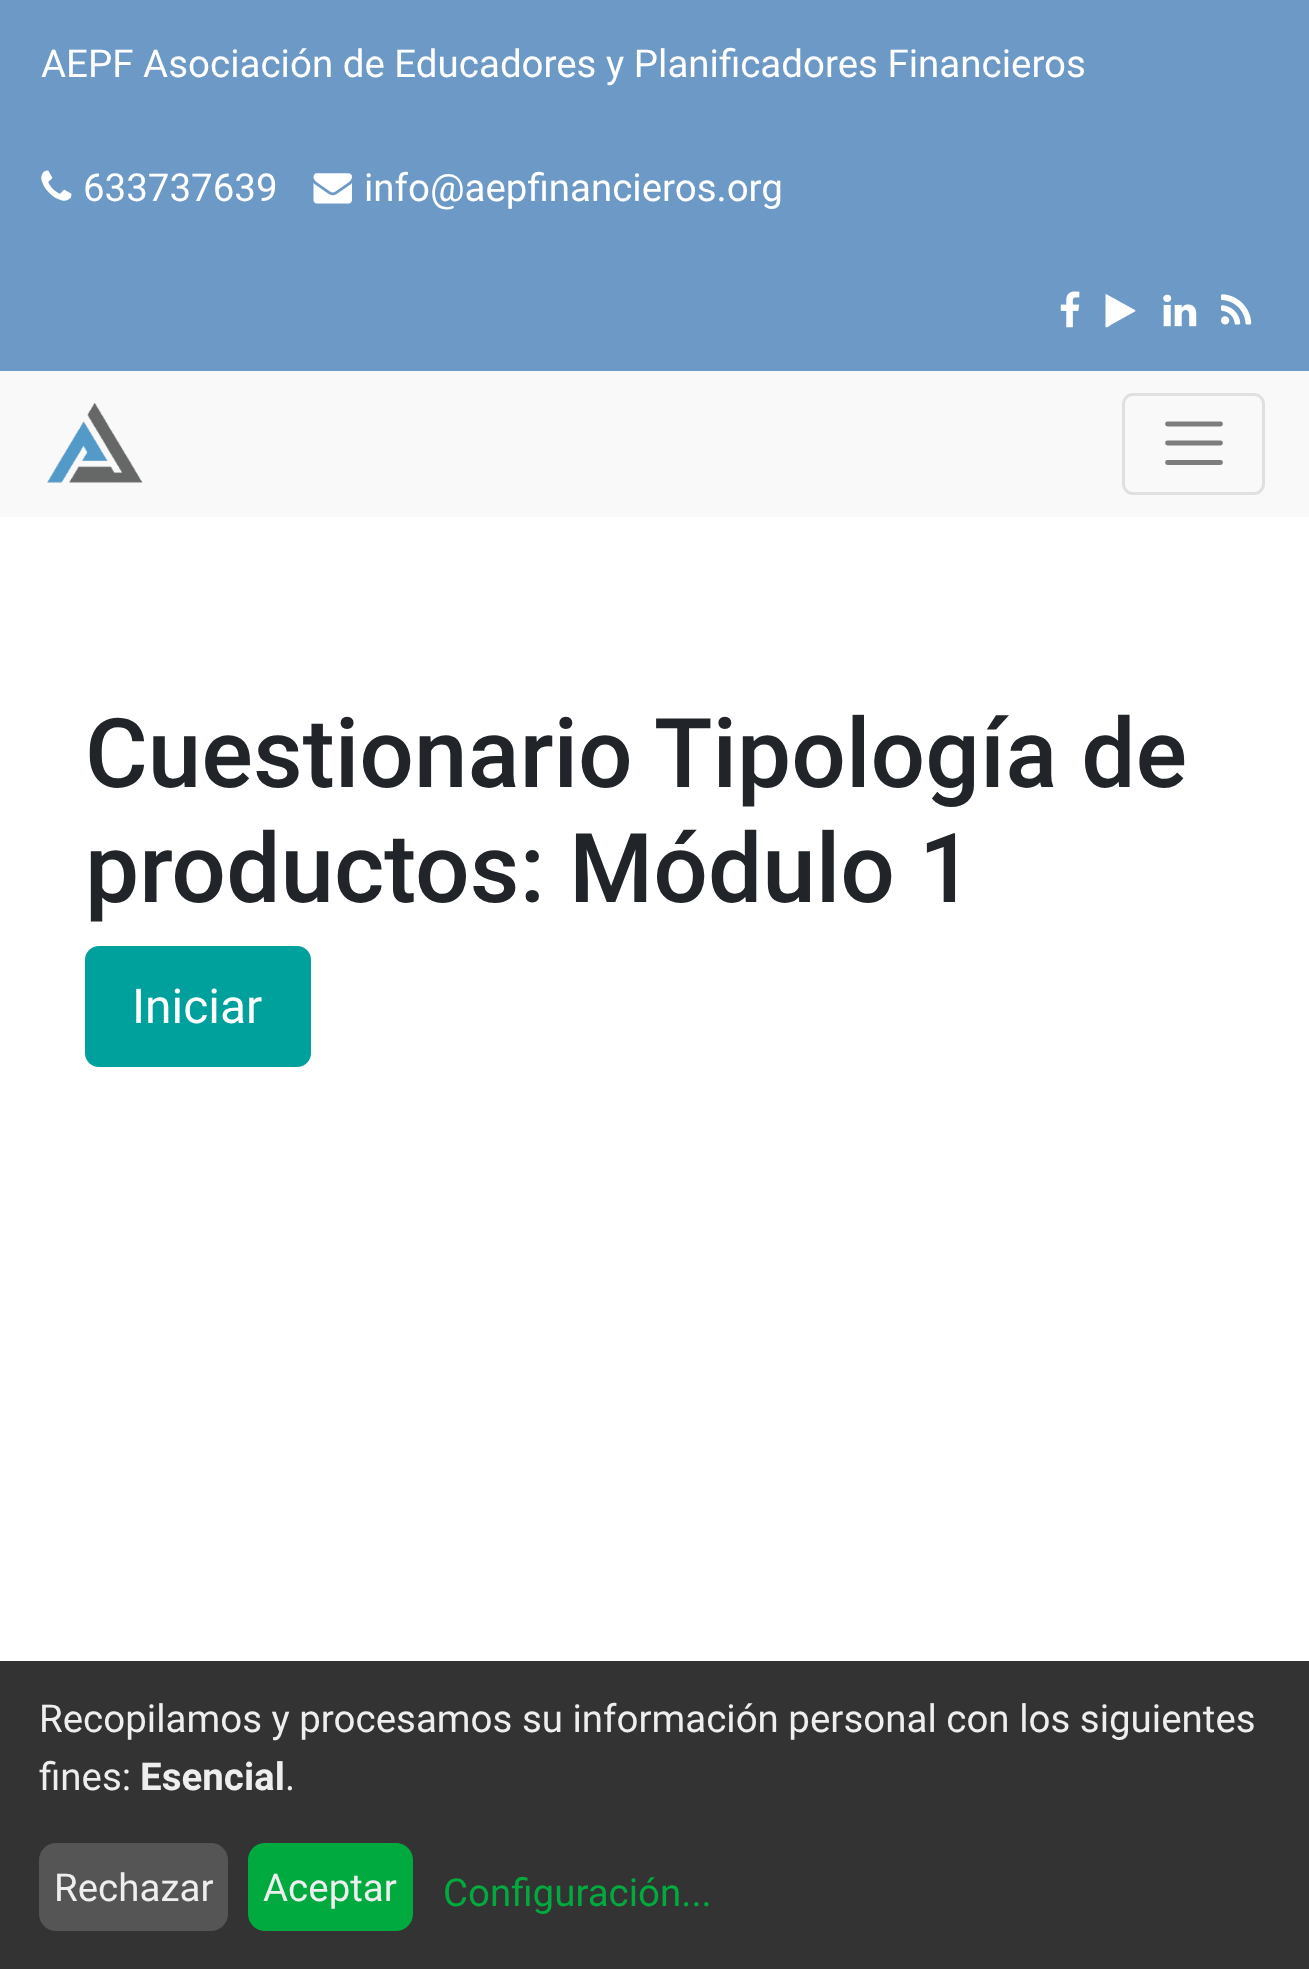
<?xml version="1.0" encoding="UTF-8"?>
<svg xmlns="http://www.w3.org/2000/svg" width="1309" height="1969">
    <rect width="100%" height="100%" fill="#FFFFFF"/>
    <rect x="0" y="0" width="1309" height="371" fill="#6D99C6"/>
    <text x="41" y="77" font-family="Roboto" font-size="38.5" fill="#FFFFFF">AEPF Asociación de Educadores y Planificadores Financieros</text>
    <image x="41" y="170" width="31" height="31" href="img_01.png"/>
    <text x="83" y="201" font-family="Roboto" font-size="38.5" fill="#FFFFFF">633737639</text>
    <image x="313" y="173" width="39" height="31" href="img_02.png"/>
    <text x="364" y="201" font-family="Roboto" font-size="38.5" fill="#FFFFFF">info@aepfinancieros.org</text>
    <image x="1060" y="291" width="20" height="37" href="img_03.png"/>
    <path d="M 1135 311.5 L 1111.5 324.5 C 1111 325 1106.5 328.5 1105.5 327 V 294.5 L 1106 294 L 1135 310 L 1135.5 310.5 Z" fill="#FFFFFF"/>
    <image x="1163" y="294" width="34" height="33" href="img_04.png"/>
    <image x="1221" y="294" width="31" height="31" href="img_05.png"/>
    <rect x="0" y="371" width="1309" height="146" fill="#F9F9F9"/>
    <image x="47" y="402" width="96" height="81" href="img_06.png"/>
    <rect x="1123.5" y="394.5" width="140" height="99" rx="9.5" fill="none" stroke="#E0E0E0" stroke-width="3"/>
    <path d="M 1167.5 424 H 1220.5 M 1167.5 443 H 1220.5 M 1167.5 462.5 H 1220.5" fill="none" stroke="#7D7D7D" stroke-width="4.8" stroke-linecap="round"/>
    <text font-family="Roboto" font-size="96.25" font-weight="500" fill="#212529">
        <tspan x="85" y="787">Cuestionario Tipología de</tspan>
        <tspan x="85" y="902">productos: Módulo 1</tspan>
    </text>
    <rect x="86.5" y="947.5" width="223" height="118" rx="12.5" fill="#00A09D" stroke="#00A09D" stroke-width="3"/>
    <text x="132" y="1023" font-family="Roboto" font-size="48" fill="#FFFFFF">Iniciar</text>
    <rect x="0" y="1661" width="1309" height="308" fill="#333333"/>
    <text font-family="Roboto" font-size="38.5" fill="#EEEEEE">
        <tspan x="39" y="1732">Recopilamos y procesamos su información personal con los siguientes</tspan>
        <tspan x="39" y="1790">fines:</tspan>
    </text>
    <text x="140" y="1790" font-family="Roboto" font-size="38.5" font-weight="700" fill="#EEEEEE">Esencial</text>
    <text x="285" y="1790" font-family="Roboto" font-size="38.5" fill="#EEEEEE">.</text>
    <rect x="39" y="1843" width="189" height="88" rx="17" fill="#555555"/>
    <text x="54" y="1901" font-family="Roboto" font-size="38.5" fill="#EEEEEE">Rechazar</text>
    <rect x="248" y="1843" width="165" height="88" rx="17" fill="#00AA3E"/>
    <text x="263" y="1901" font-family="Roboto" font-size="38.5" fill="#EEEEEE">Aceptar</text>
    <text x="443" y="1906" font-family="Roboto" font-size="38.5" fill="#00AA3E">Configuración...</text>
</svg>
